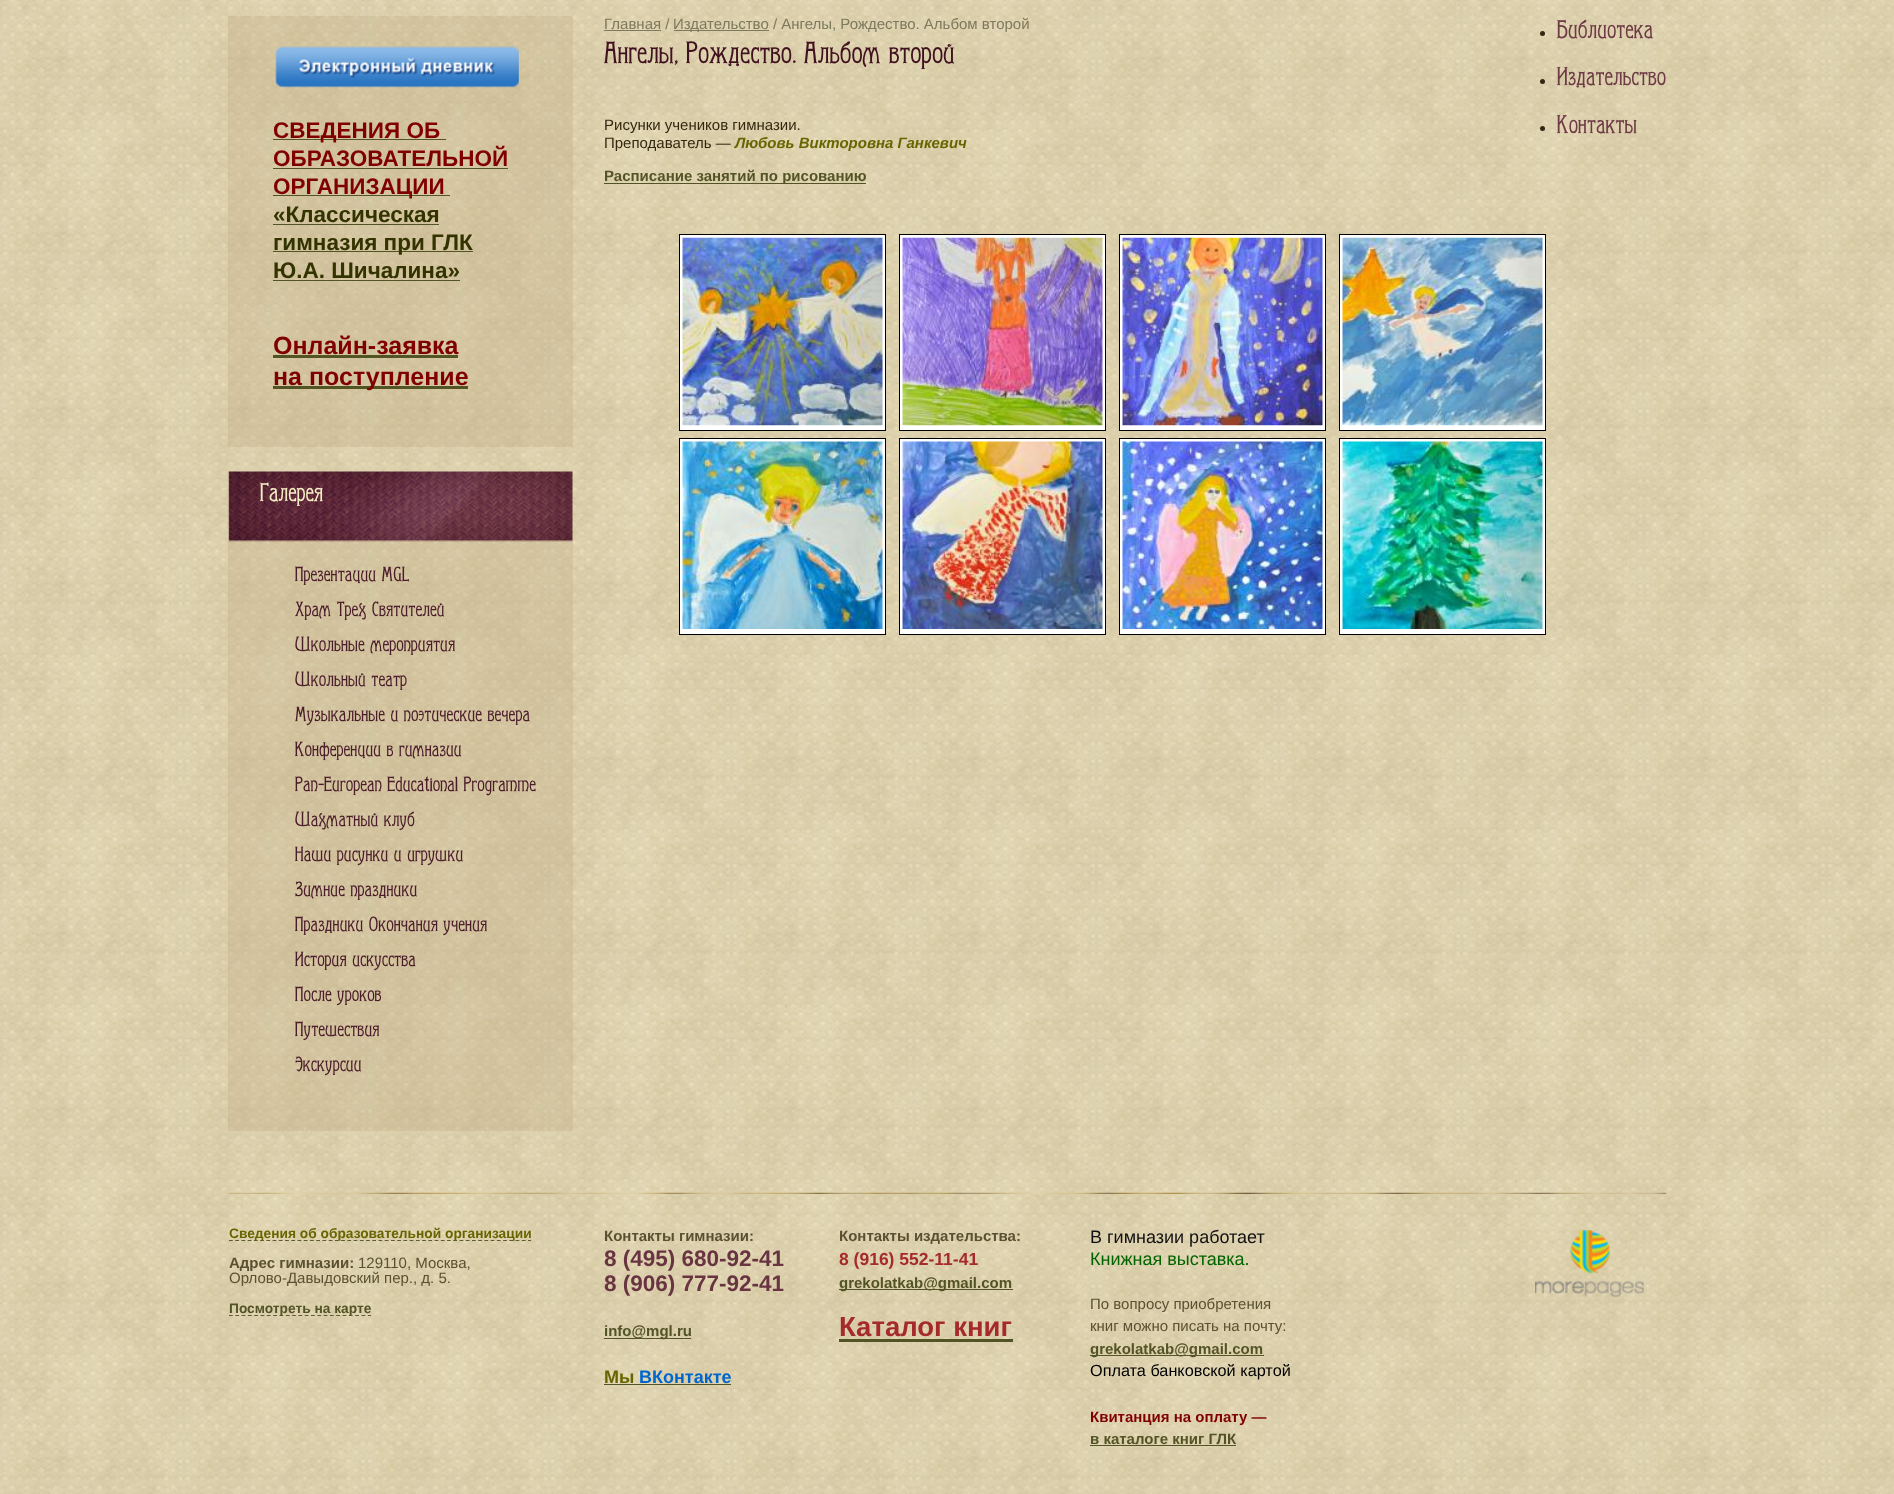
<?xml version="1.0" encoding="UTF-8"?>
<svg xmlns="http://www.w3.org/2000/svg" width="1894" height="1494">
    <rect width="100%" height="100%" fill="#FFFFFF"/>
    <image x="0" y="0" width="1894" height="1494" href="img_01.png"/>
    <text x="604" y="29" font-family="Liberation Sans" font-size="15" fill="#7D795D">Главная /</text>
    <rect x="604" y="30" width="57" height="1" fill="#7D795D"/>
    <rect x="674" y="30" width="95" height="1" fill="#7D795D"/>
    <text x="673" y="29" font-family="Liberation Sans" font-size="15" fill="#7D795D">Издательство / Ангелы, Рождество. Альбом второй</text>
    <text x="604" y="63" font-family="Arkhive" font-size="30" fill="#40111E">Ангелы, Рождество. Альбом второй</text>
    <text font-family="Liberation Sans" font-size="15" fill="#322910">
        <tspan x="604" y="130">Рисунки учеников гимназии.</tspan>
        <tspan x="604" y="148">Преподаватель —</tspan>
    </text>
    <text x="735" y="148" font-family="Liberation Sans" font-size="15" font-weight="700" font-style="italic" fill="#666600">Любовь Викторовна Ганкевич</text>
    <rect x="604" y="183" width="262" height="1" fill="#535425"/>
    <text x="604" y="181" font-family="Liberation Sans" font-size="15" font-weight="700" fill="#535425">Расписание занятий по рисованию</text>
    <rect x="679.5" y="234.5" width="206" height="196" fill="#FFFFFF" stroke="#000000"/>
    <image x="682" y="237" width="201" height="189" href="img_02.png"/>
    <rect x="899.5" y="234.5" width="206" height="196" fill="#FFFFFF" stroke="#000000"/>
    <image x="902" y="237" width="201" height="189" href="img_03.png"/>
    <rect x="1119.5" y="234.5" width="206" height="196" fill="#FFFFFF" stroke="#000000"/>
    <image x="1122" y="237" width="201" height="189" href="img_04.png"/>
    <rect x="1339.5" y="234.5" width="206" height="196" fill="#FFFFFF" stroke="#000000"/>
    <image x="1342" y="237" width="201" height="189" href="img_05.png"/>
    <rect x="679.5" y="438.5" width="206" height="196" fill="#FFFFFF" stroke="#000000"/>
    <image x="682" y="441" width="201" height="188" href="img_06.png"/>
    <rect x="899.5" y="438.5" width="206" height="196" fill="#FFFFFF" stroke="#000000"/>
    <image x="902" y="441" width="201" height="188" href="img_07.png"/>
    <rect x="1119.5" y="438.5" width="206" height="196" fill="#FFFFFF" stroke="#000000"/>
    <image x="1122" y="441" width="201" height="188" href="img_08.png"/>
    <rect x="1339.5" y="438.5" width="206" height="196" fill="#FFFFFF" stroke="#000000"/>
    <image x="1342" y="441" width="201" height="188" href="img_09.png"/>
    <rect x="228" y="16" width="345" height="431" fill="#BBA57E" fill-opacity="0.28"/>
    <image x="275" y="46" width="245" height="42" href="img_10.png"/>
    <rect x="273" y="139" width="173" height="1" fill="#535425"/>
    <text font-family="Liberation Sans" font-size="22.5" font-weight="700" fill="#800000">
        <tspan x="273" y="138">СВЕДЕНИЯ ОБ</tspan>
        <tspan x="273" y="166">ОБРАЗОВАТЕЛЬНОЙ</tspan>
    </text>
    <rect x="273" y="168" width="235" height="1" fill="#535425"/>
    <rect x="273" y="195" width="177" height="1" fill="#535425"/>
    <text x="273" y="194" font-family="Liberation Sans" font-size="22.5" font-weight="700" fill="#800000">ОРГАНИЗАЦИИ</text>
    <text x="273" y="222" font-family="Liberation Sans" font-size="22.5" font-weight="700" fill="#333300">«Классическая</text>
    <rect x="273" y="224" width="166" height="1" fill="#535425"/>
    <rect x="273" y="251" width="200" height="1" fill="#535425"/>
    <text font-family="Liberation Sans" font-size="22.5" font-weight="700" fill="#333300">
        <tspan x="273" y="250">гимназия при ГЛК</tspan>
        <tspan x="273" y="278">Ю.А. Шичалина»</tspan>
    </text>
    <rect x="273" y="280" width="187" height="1" fill="#535425"/>
    <text x="273" y="354" font-family="Liberation Sans" font-size="25" font-weight="700" fill="#800000">Онлайн-заявка</text>
    <rect x="273" y="355" width="185" height="3" fill="#535425"/>
    <rect x="273" y="386" width="195" height="3" fill="#535425"/>
    <text x="273" y="385" font-family="Liberation Sans" font-size="25" font-weight="700" fill="#800000">на поступление</text>
    <image x="228" y="471" width="345" height="71" href="img_11.png"/>
    <text x="260" y="501" font-family="Arkhive" font-size="25" fill="#F5EDC4">Галерея</text>
    <rect x="228" y="541" width="345" height="590" fill="#BBA57E" fill-opacity="0.28"/>
    <text font-family="Arkhive" font-size="20" fill="#4B1C29">
        <tspan x="295" y="581">Презентации MGL</tspan>
        <tspan x="295" y="616">Храм Трех Святителей</tspan>
        <tspan x="295" y="651">Школьные мероприятия</tspan>
        <tspan x="295" y="686">Школьный театр</tspan>
        <tspan x="295" y="721">Музыкальные и поэтические вечера</tspan>
        <tspan x="295" y="756">Конференции в гимназии</tspan>
        <tspan x="295" y="791">Pan-European Educational Programme</tspan>
        <tspan x="295" y="826">Шахматный клуб</tspan>
        <tspan x="295" y="861">Наши рисунки и игрушки</tspan>
        <tspan x="295" y="896">Зимние праздники</tspan>
        <tspan x="295" y="931">Праздники Окончания учения</tspan>
        <tspan x="295" y="966">История искусства</tspan>
        <tspan x="295" y="1001">После уроков</tspan>
        <tspan x="295" y="1036">Путешествия</tspan>
        <tspan x="295" y="1071">Экскурсии</tspan>
    </text>
    <image x="228" y="1192" width="1439" height="2" href="img_12.png"/>
    <path d="M 229 1240.5 H 531" fill="none" stroke="#5C5C2D" stroke-width="1.2" stroke-dasharray="3.75 2.48"/>
    <text x="229" y="1238" font-family="Liberation Sans" font-size="13.75" font-weight="700" fill="#666600">Сведения об образовательной организации</text>
    <text x="229" y="1268" font-family="Liberation Sans" font-size="15" font-weight="700" fill="#595131">Адрес гимназии:</text>
    <text x="358" y="1268" font-family="Liberation Sans" font-size="15" fill="#595131">129110, Москва,</text>
    <text x="229" y="1283" font-family="Liberation Sans" font-size="15" fill="#595131">Орлово-Давыдовский пер., д. 5.</text>
    <path d="M 229 1315.5 H 371" fill="none" stroke="#5C5C2D" stroke-width="1.2" stroke-dasharray="3.75 2.56"/>
    <text x="229" y="1313" font-family="Liberation Sans" font-size="13.75" font-weight="700" fill="#535425">Посмотреть на карте</text>
    <text x="604" y="1241" font-family="Liberation Sans" font-size="15" font-weight="700" fill="#595131">Контакты гимназии:</text>
    <text font-family="Liberation Sans" font-size="22.5" font-weight="700" fill="#693442">
        <tspan x="604" y="1266">8 (495) 680-92-41</tspan>
        <tspan x="604" y="1291">8 (906) 777-92-41</tspan>
    </text>
    <rect x="604" y="1338" width="87" height="1" fill="#535425"/>
    <text x="604" y="1336" font-family="Liberation Sans" font-size="15" font-weight="700" fill="#535425">info@mgl.ru</text>
    <text x="604" y="1383" font-family="Liberation Sans" font-size="18" font-weight="700" fill="#666600">Мы</text>
    <text x="639" y="1383" font-family="Liberation Sans" font-size="18" font-weight="700" fill="#0066CC">ВКонтакте</text>
    <rect x="604" y="1384" width="127" height="1" fill="#535425"/>
    <text x="839" y="1241" font-family="Liberation Sans" font-size="15" font-weight="700" fill="#595131">Контакты издательства:</text>
    <text x="839" y="1265" font-family="Liberation Sans" font-size="17.5" font-weight="700" fill="#A52A2A">8 (916) 552-11-41</text>
    <rect x="839" y="1289" width="174" height="1" fill="#535425"/>
    <text x="839" y="1288" font-family="Liberation Sans" font-size="15" font-weight="700" fill="#535425">grekolatkab@gmail.com</text>
    <text x="839" y="1336" font-family="Liberation Sans" font-size="27.5" font-weight="700" fill="#A52A2A">Каталог книг</text>
    <rect x="839" y="1339" width="174" height="3" fill="#535425"/>
    <text x="1090" y="1243" font-family="Liberation Sans" font-size="18" fill="#111111">В гимназии работает</text>
    <text x="1090" y="1265" font-family="Liberation Sans" font-size="18" fill="#006400">Книжная выставка.</text>
    <text font-family="Liberation Sans" font-size="15" fill="#595131">
        <tspan x="1090" y="1309">По вопросу приобретения</tspan>
        <tspan x="1090" y="1331">книг можно писать на почту:</tspan>
    </text>
    <rect x="1090" y="1355" width="174" height="1" fill="#535425"/>
    <text x="1090" y="1354" font-family="Liberation Sans" font-size="15" font-weight="700" fill="#535425">grekolatkab@gmail.com</text>
    <text x="1090" y="1376" font-family="Liberation Sans" font-size="16.25" fill="#000000">Оплата банковской картой</text>
    <text x="1090" y="1422" font-family="Liberation Sans" font-size="15" font-weight="700" fill="#800000">Квитанция на оплату —</text>
    <text x="1090" y="1444" font-family="Liberation Sans" font-size="15" font-weight="700" fill="#535425">в каталоге книг ГЛК</text>
    <rect x="1090" y="1445" width="146" height="1" fill="#535425"/>
    <image x="1535" y="1230" width="109" height="69" href="img_13.png"/>
    <circle cx="1542.5" cy="33.5" r="2.5" fill="#322910"/>
    <text x="1557" y="38" font-family="Arkhive" font-size="25" fill="#6D3A45">Библиотека</text>
    <circle cx="1542.5" cy="81.5" r="2.5" fill="#322910"/>
    <text x="1557" y="85" font-family="Arkhive" font-size="25" fill="#6D3A45">Издательство</text>
    <circle cx="1542.5" cy="128.5" r="2.5" fill="#322910"/>
    <text x="1557" y="133" font-family="Arkhive" font-size="25" fill="#6D3A45">Контакты</text>
</svg>
